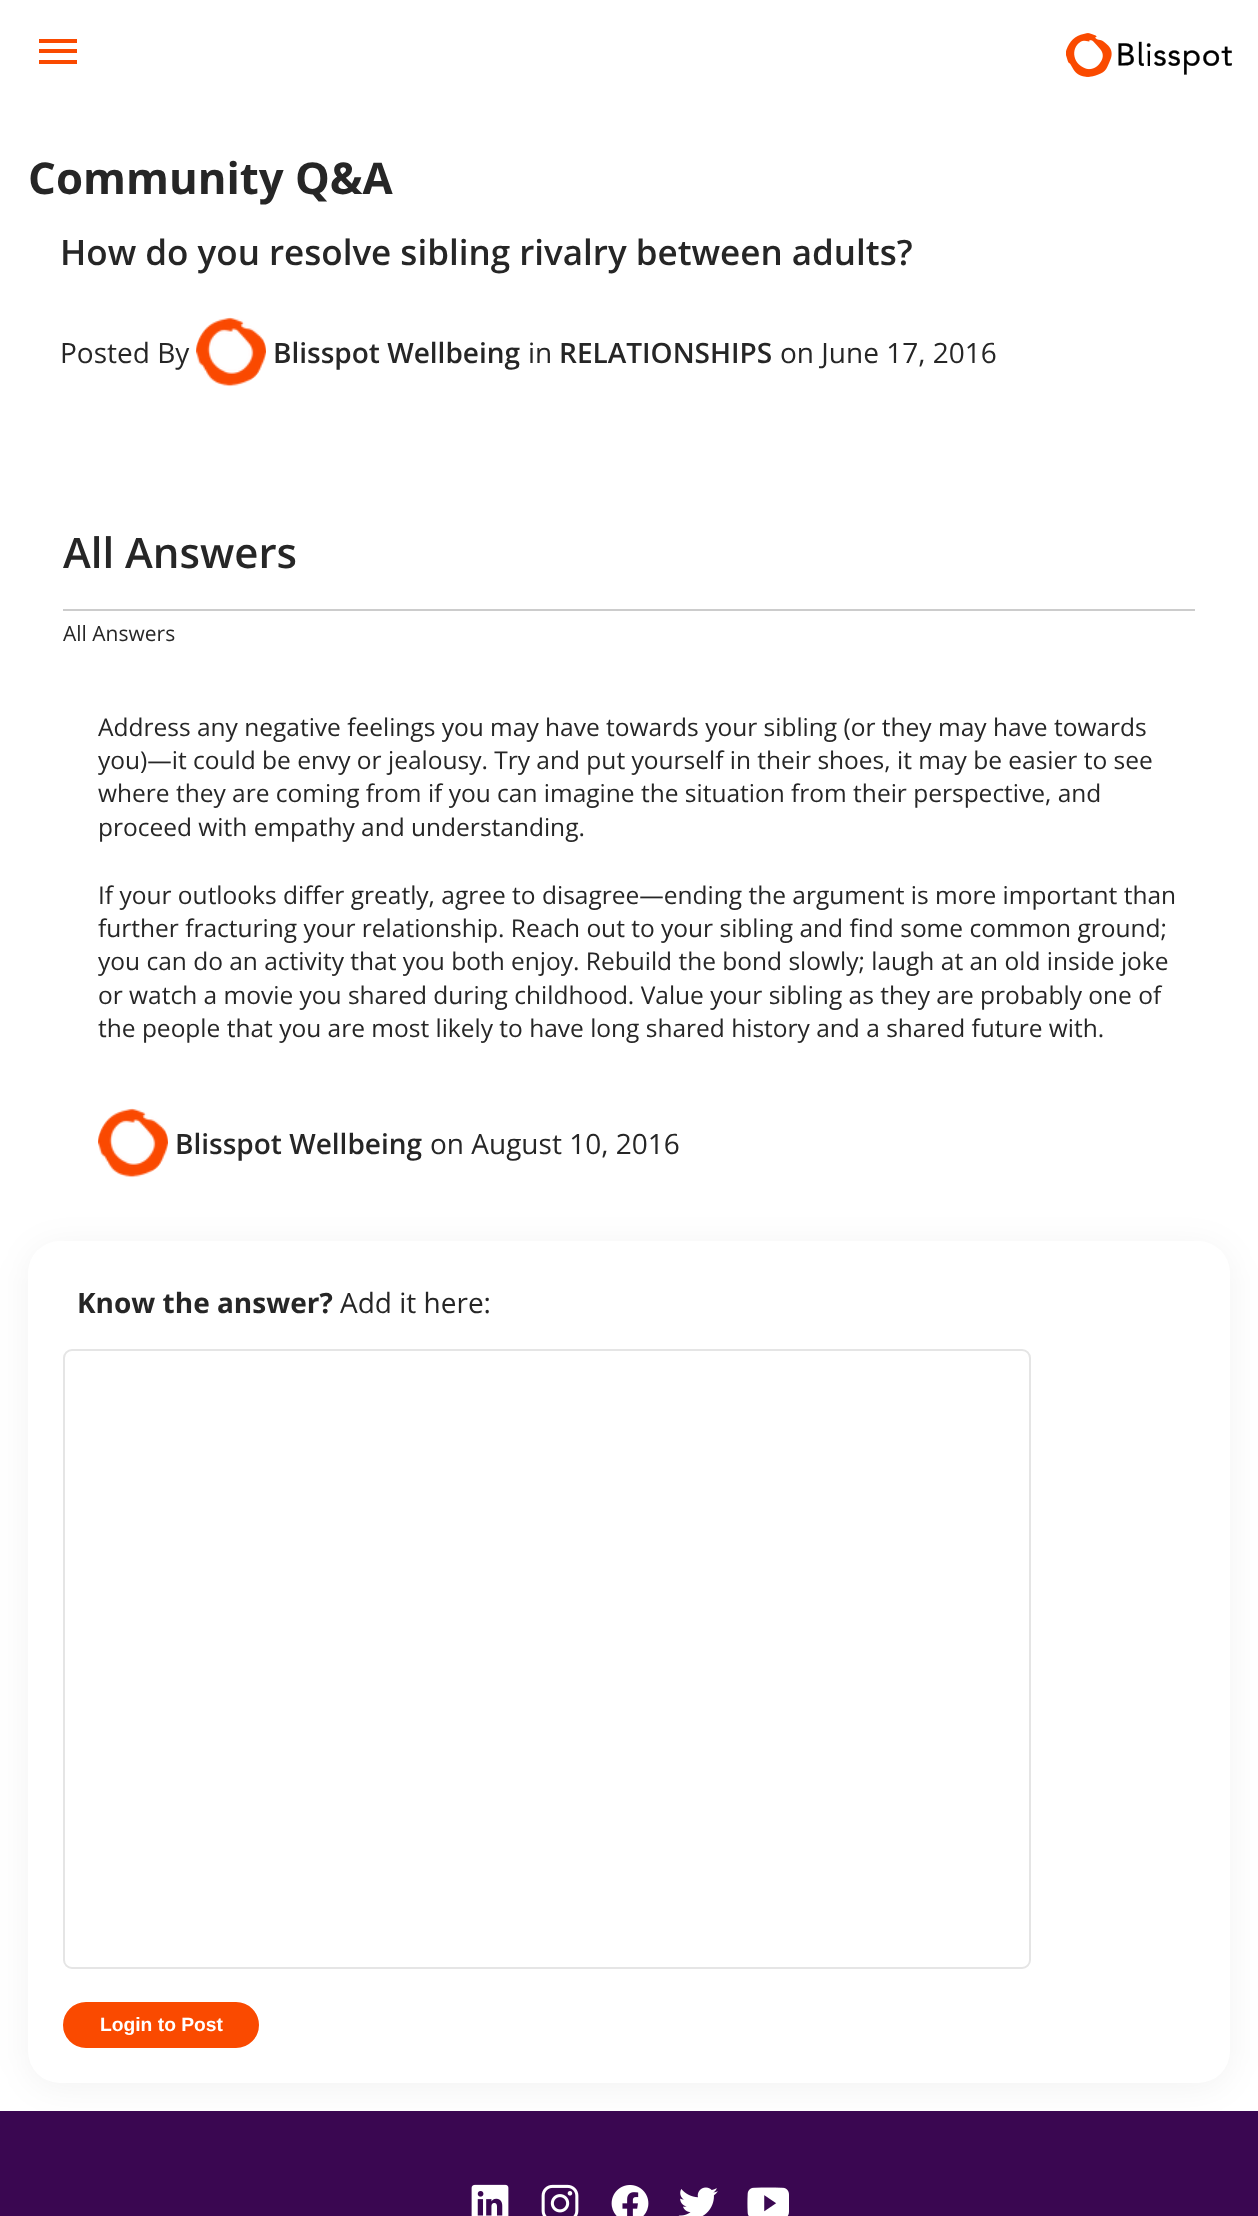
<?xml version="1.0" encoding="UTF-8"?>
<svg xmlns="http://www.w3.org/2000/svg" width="1258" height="2216">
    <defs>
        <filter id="blur1" x="-50%" y="-200%" width="200%" height="500%"><feGaussianBlur stdDeviation="17.5"/></filter>
    </defs>
    <rect width="100%" height="100%" fill="#FFFFFF"/>
    <rect x="39" y="39" width="38" height="4" fill="#FA4A00"/>
    <rect x="39" y="49" width="38" height="4" fill="#FA4A00"/>
    <rect x="39" y="60" width="38" height="4" fill="#FA4A00"/>
    <image x="1066" y="33" width="166" height="44" href="img_01.png"/>
    <text x="28" y="194" font-family="Open Sans" font-size="43.75" font-weight="700" fill="#262626">Community Q&amp;A</text>
    <text x="60" y="265" font-family="Open Sans" font-size="35" font-weight="600" fill="#262626">How do you resolve sibling rivalry between adults?</text>
    <text x="60" y="363" font-family="Open Sans" font-size="28" fill="#262626">Posted By</text>
    <image x="196" y="317" width="70" height="70" href="img_02.png"/>
    <text x="273" y="363" font-family="Open Sans" font-size="28" font-weight="600" fill="#262626">Blisspot Wellbeing</text>
    <text x="528" y="363" font-family="Open Sans" font-size="28" fill="#262626">in</text>
    <text x="559" y="363" font-family="Open Sans" font-size="28" font-weight="600" fill="#262626">RELATIONSHIPS</text>
    <text x="780" y="363" font-family="Open Sans" font-size="28" fill="#262626">on June 17, 2016</text>
    <rect x="63" y="609" width="1132" height="2" fill="#CCCCCC"/>
    <text x="63" y="568" font-family="Open Sans" font-size="42" font-weight="600" fill="#262626">All Answers</text>
    <text x="63" y="641" font-family="Open Sans" font-size="21" fill="#262626">All Answers</text>
    <text font-family="Open Sans" font-size="24.5" fill="#262626">
        <tspan x="98" y="736">Address any negative feelings you may have towards your sibling (or they may have towards</tspan>
        <tspan x="98" y="769">you)—it could be envy or jealousy. Try and put yourself in their shoes, it may be easier to see</tspan>
        <tspan x="98" y="802">where they are coming from if you can imagine the situation from their perspective, and</tspan>
        <tspan x="98" y="836">proceed with empathy and understanding.</tspan>
    </text>
    <text font-family="Open Sans" font-size="24.5" fill="#262626">
        <tspan x="98" y="904">If your outlooks differ greatly, agree to disagree—ending the argument is more important than</tspan>
        <tspan x="98" y="937">further fracturing your relationship. Reach out to your sibling and find some common ground;</tspan>
        <tspan x="98" y="970">you can do an activity that you both enjoy. Rebuild the bond slowly; laugh at an old inside joke</tspan>
        <tspan x="98" y="1004">or watch a movie you shared during childhood. Value your sibling as they are probably one of</tspan>
        <tspan x="98" y="1037">the people that you are most likely to have long shared history and a shared future with.</tspan>
    </text>
    <image x="98" y="1108" width="70" height="70" href="img_03.png"/>
    <text x="175" y="1154" font-family="Open Sans" font-size="28" font-weight="600" fill="#262626">Blisspot Wellbeing</text>
    <text x="430" y="1154" font-family="Open Sans" font-size="28" fill="#262626">on August 10, 2016</text>
    <rect x="28" y="1246" width="1202" height="842" rx="32" fill="#000000" fill-opacity="0.05" filter="url(#blur1)"/>
    <rect x="28" y="1241" width="1202" height="842" rx="32" fill="#FFFFFF"/>
    <text x="77" y="1313" font-family="Open Sans" font-size="28" font-weight="700" fill="#262626">Know the answer?</text>
    <text x="340" y="1313" font-family="Open Sans" font-size="28" fill="#262626">Add it here:</text>
    <rect x="64" y="1350" width="966" height="618" rx="8" fill="none" stroke="#E5E5E5" stroke-width="2"/>
    <rect x="64" y="2003" width="194" height="44" rx="22" fill="#FA4A00" stroke="#FA4A00" stroke-width="2"/>
    <text x="100" y="2031" font-family="Liberation Sans" font-size="19.25" font-weight="700" fill="#FFFFFF">Login to Post</text>
    <rect x="0" y="2111" width="1258" height="105" fill="#3A0751"/>
    <image x="471" y="2184" width="38" height="32" href="img_04.png"/>
    <image x="541" y="2184" width="38" height="32" href="img_05.png"/>
    <image x="611" y="2185" width="38" height="31" href="img_06.png"/>
    <image x="678" y="2187" width="40" height="29" href="img_07.png"/>
    <image x="747" y="2187" width="42" height="29" href="img_08.png"/>
</svg>
